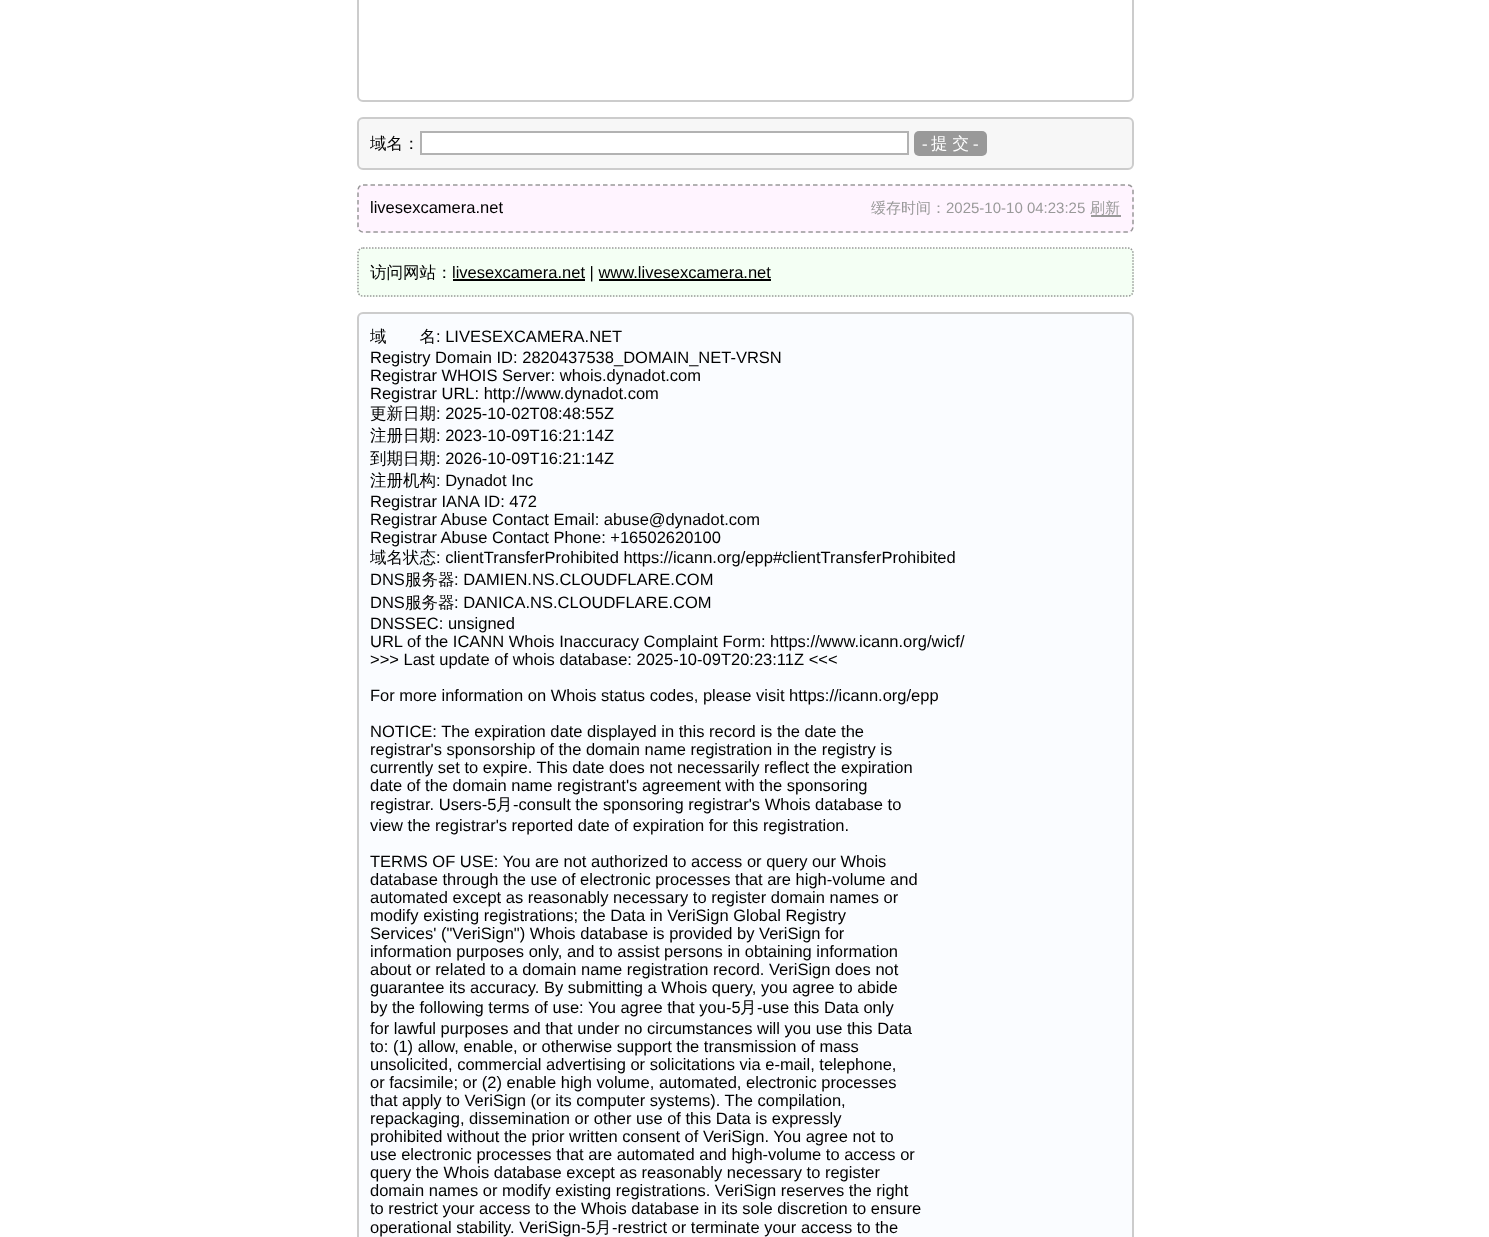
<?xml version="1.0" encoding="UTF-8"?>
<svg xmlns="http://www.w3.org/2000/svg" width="1489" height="1237">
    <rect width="100%" height="100%" fill="#FFFFFF"/>
    <rect x="358" y="-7" width="775" height="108" rx="5" fill="none" stroke="#CCCCCC" stroke-width="2"/>
    <rect x="358" y="118" width="775" height="51" rx="5" fill="#F7F7F7" stroke="#CCCCCC" stroke-width="2"/>
    <text x="370" y="149" font-family="WenQuanYi Zen Hei" font-size="16.5" font-weight="500" fill="#000000">域名：</text>
    <rect x="421" y="132" width="487" height="22" fill="#FFFFFF" stroke="#B2B2B2" stroke-width="2"/>
    <rect x="914" y="131" width="73" height="25" rx="5" fill="#999999"/>
    <text x="922" y="149" font-family="Liberation Serif" font-size="16.5" fill="#FFFFFF">-</text>
    <text x="931" y="149" font-family="WenQuanYi Zen Hei" font-size="16.5" font-weight="500" fill="#FFFFFF">提 交</text>
    <text x="973" y="149" font-family="Liberation Serif" font-size="16.5" fill="#FFFFFF">-</text>
    <rect x="357" y="185" width="777" height="48" rx="6" fill="#FFF4FF"/>
    <path d="M 363 185 H 1128 C 1131 185 1133 187.5 1133 190.5 V 226.5 C 1133 229.5 1131 232 1128 232 H 363 C 360 232 358 229.5 358 226.5 V 190.5 C 358 187.5 360 185 363 185 Z" fill="none" stroke="#999999" stroke-width="1.5" stroke-dasharray="4.5 3"/>
    <text x="370" y="213" font-family="Liberation Sans" font-size="16.5" fill="#000000">livesexcamera.net</text>
    <text x="871" y="213" font-family="WenQuanYi Zen Hei" font-size="15" font-weight="500" fill="#999999">缓存时间：</text>
    <text x="946" y="213" font-family="Liberation Sans" font-size="15" fill="#999999">2025-10-10 04:23:25</text>
    <rect x="1091" y="215" width="30" height="2" fill="#999999"/>
    <text x="1090" y="213" font-family="WenQuanYi Zen Hei" font-size="15" font-weight="500" fill="#999999">刷新</text>
    <rect x="357" y="248" width="777" height="49" rx="6" fill="#F4FFF4"/>
    <path d="M 363 248 H 1128 C 1131 248 1133 250.5 1133 253.5 V 291 C 1133 294 1131 296 1128 296 H 363 C 360 296 358 294 358 291 V 253.5 C 358 250.5 360 248 363 248 Z" fill="none" stroke="#999999" stroke-width="1.5" stroke-dasharray="1.5 1.5"/>
    <text x="370" y="278" font-family="WenQuanYi Zen Hei" font-size="16.5" font-weight="500" fill="#000000">访问网站：</text>
    <rect x="453" y="279" width="132" height="2" fill="#000000"/>
    <text x="452" y="278" font-family="Liberation Sans" font-size="16.5" fill="#000000">livesexcamera.net | www.livesexcamera.net</text>
    <rect x="599" y="279" width="172" height="2" fill="#000000"/>
    <rect x="358" y="313" width="775" height="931" rx="5" fill="#FAFCFF" stroke="#CCCCCC" stroke-width="2"/>
    <text x="370" y="342" font-family="WenQuanYi Zen Hei" font-size="16.5" font-weight="500" fill="#000000">域　　名</text>
    <text x="436" y="342" font-family="Liberation Sans" font-size="16.5" fill="#000000">: LIVESEXCAMERA.NET</text>
    <text font-family="Liberation Sans" font-size="16.5" fill="#000000">
        <tspan x="370" y="363">Registry Domain ID: 2820437538_DOMAIN_NET-VRSN</tspan>
        <tspan x="370" y="381">Registrar WHOIS Server: whois.dynadot.com</tspan>
        <tspan x="370" y="399">Registrar URL: http://www.dynadot.com</tspan>
    </text>
    <text x="370" y="419" font-family="WenQuanYi Zen Hei" font-size="16.5" font-weight="500" fill="#000000">更新日期</text>
    <text x="436" y="419" font-family="Liberation Sans" font-size="16.5" fill="#000000">: 2025-10-02T08:48:55Z</text>
    <text x="370" y="441" font-family="WenQuanYi Zen Hei" font-size="16.5" font-weight="500" fill="#000000">注册日期</text>
    <text x="436" y="441" font-family="Liberation Sans" font-size="16.5" fill="#000000">: 2023-10-09T16:21:14Z</text>
    <text x="370" y="464" font-family="WenQuanYi Zen Hei" font-size="16.5" font-weight="500" fill="#000000">到期日期</text>
    <text x="436" y="464" font-family="Liberation Sans" font-size="16.5" fill="#000000">: 2026-10-09T16:21:14Z</text>
    <text x="370" y="486" font-family="WenQuanYi Zen Hei" font-size="16.5" font-weight="500" fill="#000000">注册机构</text>
    <text x="436" y="486" font-family="Liberation Sans" font-size="16.5" fill="#000000">: Dynadot Inc</text>
    <text font-family="Liberation Sans" font-size="16.5" fill="#000000">
        <tspan x="370" y="507">Registrar IANA ID: 472</tspan>
        <tspan x="370" y="525">Registrar Abuse Contact Email: abuse@dynadot.com</tspan>
        <tspan x="370" y="543">Registrar Abuse Contact Phone: +16502620100</tspan>
    </text>
    <text x="370" y="563" font-family="WenQuanYi Zen Hei" font-size="16.5" font-weight="500" fill="#000000">域名状态</text>
    <text x="436" y="563" font-family="Liberation Sans" font-size="16.5" fill="#000000">: clientTransferProhibited https://icann.org/epp#clientTransferProhibited</text>
    <text x="370" y="585" font-family="Liberation Sans" font-size="16.5" fill="#000000">DNS</text>
    <text x="405" y="585" font-family="WenQuanYi Zen Hei" font-size="16.5" font-weight="500" fill="#000000">服务器</text>
    <text x="454" y="585" font-family="Liberation Sans" font-size="16.5" fill="#000000">: DAMIEN.NS.CLOUDFLARE.COM</text>
    <text x="370" y="608" font-family="Liberation Sans" font-size="16.5" fill="#000000">DNS</text>
    <text x="405" y="608" font-family="WenQuanYi Zen Hei" font-size="16.5" font-weight="500" fill="#000000">服务器</text>
    <text x="454" y="608" font-family="Liberation Sans" font-size="16.5" fill="#000000">: DANICA.NS.CLOUDFLARE.COM</text>
    <text font-family="Liberation Sans" font-size="16.5" fill="#000000">
        <tspan x="370" y="629">DNSSEC: unsigned</tspan>
        <tspan x="370" y="647">URL of the ICANN Whois Inaccuracy Complaint Form: https://www.icann.org/wicf/</tspan>
        <tspan x="370" y="665">&gt;&gt;&gt; Last update of whois database: 2025-10-09T20:23:11Z &lt;&lt;&lt;</tspan>
    </text>
    <text x="370" y="701" font-family="Liberation Sans" font-size="16.5" fill="#000000">For more information on Whois status codes, please visit https://icann.org/epp</text>
    <text font-family="Liberation Sans" font-size="16.5" fill="#000000">
        <tspan x="370" y="737">NOTICE: The expiration date displayed in this record is the date the</tspan>
        <tspan x="370" y="755">registrar's sponsorship of the domain name registration in the registry is</tspan>
        <tspan x="370" y="773">currently set to expire. This date does not necessarily reflect the expiration</tspan>
        <tspan x="370" y="791">date of the domain name registrant's agreement with the sponsoring</tspan>
        <tspan x="370" y="810">registrar. Users-5</tspan>
    </text>
    <text x="496" y="810" font-family="WenQuanYi Zen Hei" font-size="16.5" font-weight="500" fill="#000000">月</text>
    <text x="513" y="810" font-family="Liberation Sans" font-size="16.5" fill="#000000">-consult the sponsoring registrar's Whois database to</text>
    <text x="370" y="831" font-family="Liberation Sans" font-size="16.5" fill="#000000">view the registrar's reported date of expiration for this registration.</text>
    <text font-family="Liberation Sans" font-size="16.5" fill="#000000">
        <tspan x="370" y="867">TERMS OF USE: You are not authorized to access or query our Whois</tspan>
        <tspan x="370" y="885">database through the use of electronic processes that are high-volume and</tspan>
        <tspan x="370" y="903">automated except as reasonably necessary to register domain names or</tspan>
        <tspan x="370" y="921">modify existing registrations; the Data in VeriSign Global Registry</tspan>
        <tspan x="370" y="939">Services' ("VeriSign") Whois database is provided by VeriSign for</tspan>
        <tspan x="370" y="957">information purposes only, and to assist persons in obtaining information</tspan>
        <tspan x="370" y="975">about or related to a domain name registration record. VeriSign does not</tspan>
        <tspan x="370" y="993">guarantee its accuracy. By submitting a Whois query, you agree to abide</tspan>
        <tspan x="370" y="1013">by the following terms of use: You agree that you-5</tspan>
    </text>
    <text x="740" y="1013" font-family="WenQuanYi Zen Hei" font-size="16.5" font-weight="500" fill="#000000">月</text>
    <text x="757" y="1013" font-family="Liberation Sans" font-size="16.5" fill="#000000">-use this Data only</text>
    <text font-family="Liberation Sans" font-size="16.5" fill="#000000">
        <tspan x="370" y="1034">for lawful purposes and that under no circumstances will you use this Data</tspan>
        <tspan x="370" y="1052">to: (1) allow, enable, or otherwise support the transmission of mass</tspan>
        <tspan x="370" y="1070">unsolicited, commercial advertising or solicitations via e-mail, telephone,</tspan>
        <tspan x="370" y="1088">or facsimile; or (2) enable high volume, automated, electronic processes</tspan>
        <tspan x="370" y="1106">that apply to VeriSign (or its computer systems). The compilation,</tspan>
        <tspan x="370" y="1124">repackaging, dissemination or other use of this Data is expressly</tspan>
        <tspan x="370" y="1142">prohibited without the prior written consent of VeriSign. You agree not to</tspan>
        <tspan x="370" y="1160">use electronic processes that are automated and high-volume to access or</tspan>
        <tspan x="370" y="1178">query the Whois database except as reasonably necessary to register</tspan>
        <tspan x="370" y="1196">domain names or modify existing registrations. VeriSign reserves the right</tspan>
        <tspan x="370" y="1214">to restrict your access to the Whois database in its sole discretion to ensure</tspan>
        <tspan x="370" y="1233">operational stability. VeriSign-5</tspan>
    </text>
    <text x="595" y="1233" font-family="WenQuanYi Zen Hei" font-size="16.5" font-weight="500" fill="#000000">月</text>
    <text x="612" y="1233" font-family="Liberation Sans" font-size="16.5" fill="#000000">-restrict or terminate your access to the</text>
</svg>
